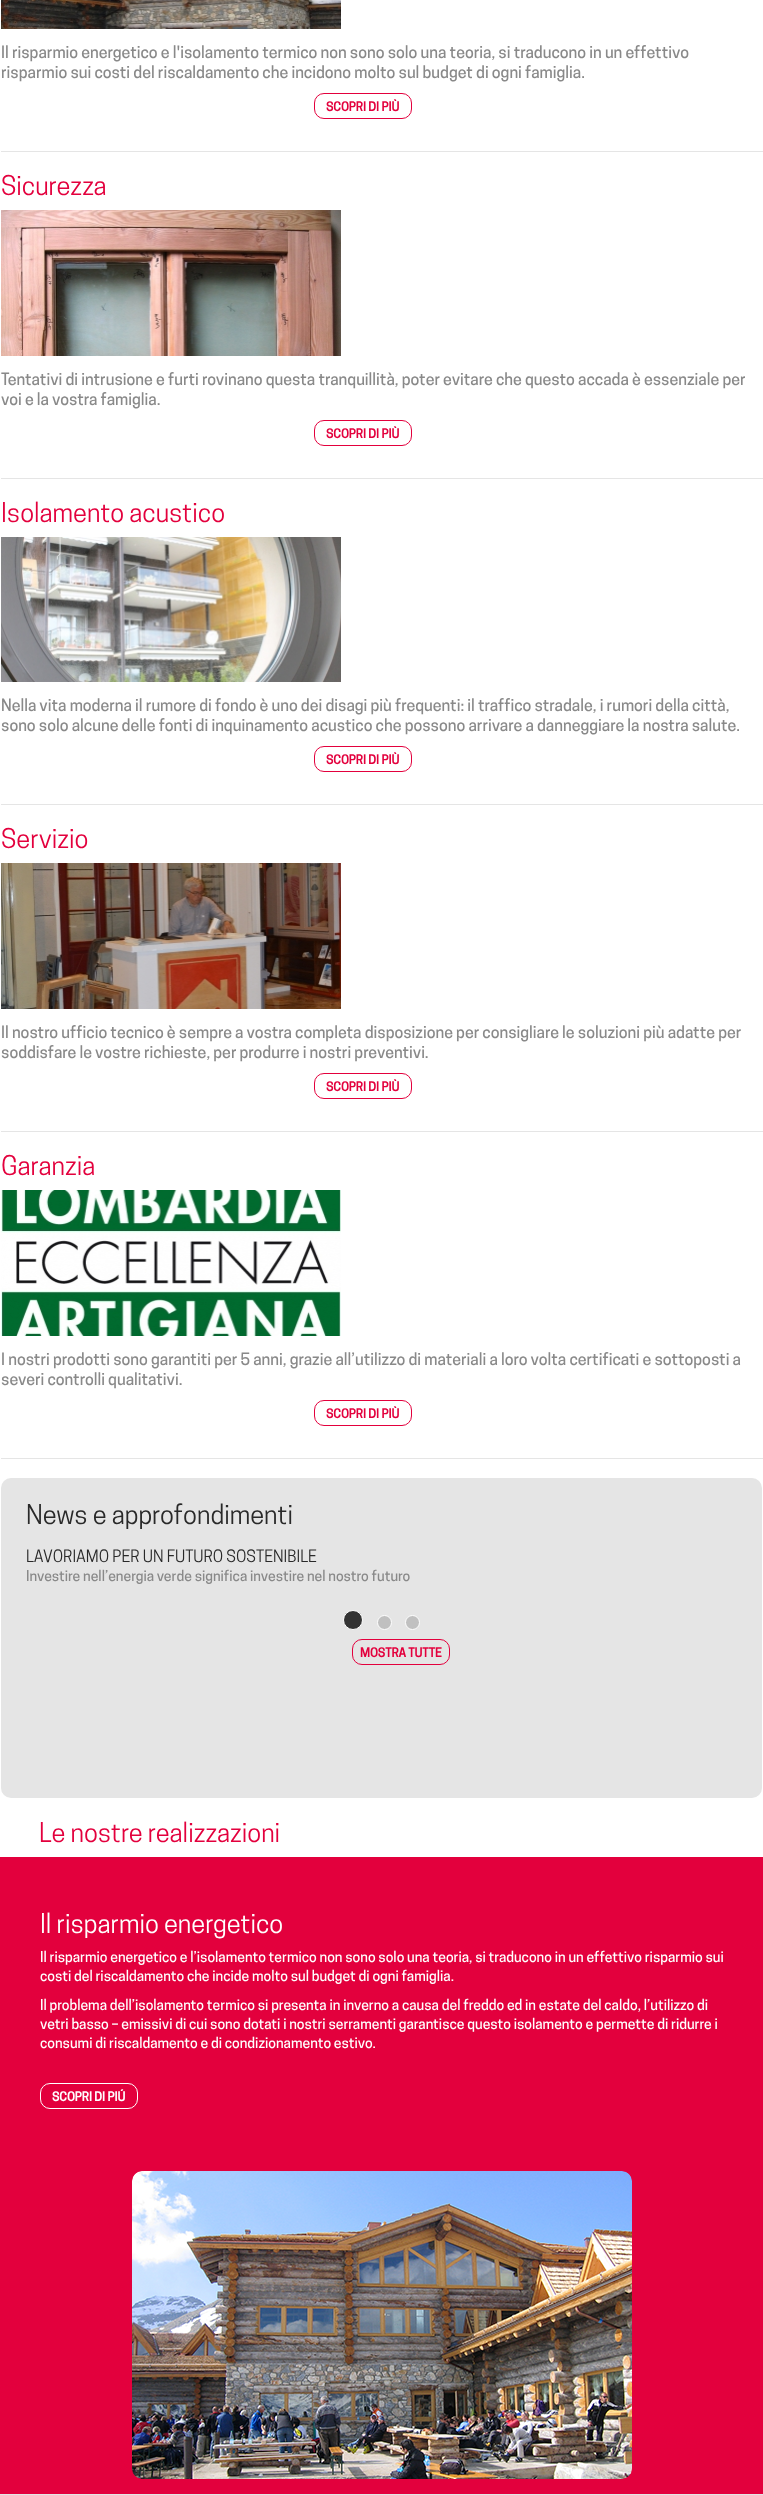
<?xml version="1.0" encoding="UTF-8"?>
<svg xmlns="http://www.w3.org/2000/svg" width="763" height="2495">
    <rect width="100%" height="100%" fill="#FFFFFF"/>
    <rect x="1" y="151" width="762" height="1" fill="#E5E5E5"/>
    <image x="1" y="0" width="340" height="29" href="img_01.png"/>
    <text font-family="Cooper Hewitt" font-size="16" font-weight="500" fill="#898989">
        <tspan x="1" y="58">Il risparmio energetico e l'isolamento termico non sono solo una teoria, si traducono in un effettivo</tspan>
        <tspan x="1" y="78">risparmio sui costi del riscaldamento che incidono molto sul budget di ogni famiglia.</tspan>
    </text>
    <rect x="314.5" y="93.5" width="97" height="25" rx="9.5" fill="none" stroke="#E3003D"/>
    <text x="326" y="111" font-family="Cooper Hewitt" font-size="12" font-weight="700" fill="#E3003D">SCOPRI DI PIÙ</text>
    <rect x="1" y="478" width="762" height="1" fill="#E5E5E5"/>
    <text x="1" y="195" font-family="Cooper Hewitt" font-size="25.5" fill="#E3003D">Sicurezza</text>
    <image x="1" y="210" width="340" height="146" href="img_02.png"/>
    <text font-family="Cooper Hewitt" font-size="16" font-weight="500" fill="#898989">
        <tspan x="1" y="385">Tentativi di intrusione e furti rovinano questa tranquillità, poter evitare che questo accada è essenziale per</tspan>
        <tspan x="1" y="405">voi e la vostra famiglia.</tspan>
    </text>
    <rect x="314.5" y="420.5" width="97" height="25" rx="9.5" fill="none" stroke="#E3003D"/>
    <text x="326" y="438" font-family="Cooper Hewitt" font-size="12" font-weight="700" fill="#E3003D">SCOPRI DI PIÙ</text>
    <rect x="1" y="804" width="762" height="1" fill="#E5E5E5"/>
    <text x="1" y="522" font-family="Cooper Hewitt" font-size="25.5" fill="#E3003D">Isolamento acustico</text>
    <image x="1" y="537" width="340" height="145" href="img_03.png"/>
    <text font-family="Cooper Hewitt" font-size="16" font-weight="500" fill="#898989">
        <tspan x="1" y="711">Nella vita moderna il rumore di fondo è uno dei disagi più frequenti: il traffico stradale, i rumori della città,</tspan>
        <tspan x="1" y="731">sono solo alcune delle fonti di inquinamento acustico che possono arrivare a danneggiare la nostra salute.</tspan>
    </text>
    <rect x="314.5" y="746.5" width="97" height="25" rx="9.5" fill="none" stroke="#E3003D"/>
    <text x="326" y="764" font-family="Cooper Hewitt" font-size="12" font-weight="700" fill="#E3003D">SCOPRI DI PIÙ</text>
    <rect x="1" y="1131" width="762" height="1" fill="#E5E5E5"/>
    <text x="1" y="848" font-family="Cooper Hewitt" font-size="25.5" fill="#E3003D">Servizio</text>
    <image x="1" y="863" width="340" height="146" href="img_04.png"/>
    <text font-family="Cooper Hewitt" font-size="16" font-weight="500" fill="#898989">
        <tspan x="1" y="1038">Il nostro ufficio tecnico è sempre a vostra completa disposizione per consigliare le soluzioni più adatte per</tspan>
        <tspan x="1" y="1058">soddisfare le vostre richieste, per produrre i nostri preventivi.</tspan>
    </text>
    <rect x="314.5" y="1073.5" width="97" height="25" rx="9.5" fill="none" stroke="#E3003D"/>
    <text x="326" y="1091" font-family="Cooper Hewitt" font-size="12" font-weight="700" fill="#E3003D">SCOPRI DI PIÙ</text>
    <rect x="1" y="1458" width="762" height="1" fill="#E5E5E5"/>
    <text x="1" y="1175" font-family="Cooper Hewitt" font-size="25.5" fill="#E3003D">Garanzia</text>
    <image x="1" y="1190" width="340" height="146" href="img_05.png"/>
    <text font-family="Cooper Hewitt" font-size="16" font-weight="500" fill="#898989">
        <tspan x="1" y="1365">I nostri prodotti sono garantiti per 5 anni, grazie all’utilizzo di materiali a loro volta certificati e sottoposti a</tspan>
        <tspan x="1" y="1385">severi controlli qualitativi.</tspan>
    </text>
    <rect x="314.5" y="1400.5" width="97" height="25" rx="9.5" fill="none" stroke="#E3003D"/>
    <text x="326" y="1418" font-family="Cooper Hewitt" font-size="12" font-weight="700" fill="#E3003D">SCOPRI DI PIÙ</text>
    <rect x="1" y="1478" width="761" height="320" rx="10" fill="#E5E5E5"/>
    <text x="26" y="1524" font-family="Cooper Hewitt" font-size="25.5" fill="#292929">News e approfondimenti</text>
    <text x="26" y="1562" font-family="Cooper Hewitt" font-size="16" fill="#292929">LAVORIAMO PER UN FUTURO SOSTENIBILE</text>
    <text x="26" y="1581" font-family="Cooper Hewitt" font-size="14" font-weight="500" fill="#898989">Investire nell’energia verde significa investire nel nostro futuro</text>
    <circle cx="353" cy="1620" r="9.5" fill="#333333" stroke="#FFFFFF"/>
    <circle cx="384.5" cy="1622.5" r="7" fill="#C0C0C0" stroke="#FFFFFF"/>
    <circle cx="412.5" cy="1622.5" r="7" fill="#C0C0C0" stroke="#FFFFFF"/>
    <rect x="352.5" y="1639.5" width="97" height="25" rx="9.5" fill="none" stroke="#E3003D"/>
    <text x="360" y="1657" font-family="Cooper Hewitt" font-size="12" font-weight="700" fill="#E3003D">MOSTRA TUTTE</text>
    <text x="39" y="1842" font-family="Cooper Hewitt" font-size="25.5" fill="#E3003D">Le nostre realizzazioni</text>
    <rect x="0" y="1857" width="763" height="637" fill="#E3003D"/>
    <text x="40" y="1933" font-family="Cooper Hewitt" font-size="25.5" fill="#FFFFFF">Il risparmio energetico</text>
    <text font-family="Cooper Hewitt" font-size="14" font-weight="500" fill="#FFFFFF">
        <tspan x="40" y="1962">Il risparmio energetico e l’isolamento termico non sono solo una teoria, si traducono in un effettivo risparmio sui</tspan>
        <tspan x="40" y="1981">costi del riscaldamento che incide molto sul budget di ogni famiglia.</tspan>
    </text>
    <text font-family="Cooper Hewitt" font-size="14" font-weight="500" fill="#FFFFFF">
        <tspan x="40" y="2010">Il problema dell’isolamento termico si presenta in inverno a causa del freddo ed in estate del caldo, l’utilizzo di</tspan>
        <tspan x="40" y="2029">vetri basso – emissivi di cui sono dotati i nostri serramenti garantisce questo isolamento e permette di ridurre i</tspan>
        <tspan x="40" y="2048">consumi di riscaldamento e di condizionamento estivo.</tspan>
    </text>
    <rect x="40.5" y="2083.5" width="97" height="25" rx="9.5" fill="none" stroke="#FFFFFF"/>
    <text x="52" y="2101" font-family="Cooper Hewitt" font-size="12" font-weight="700" fill="#FFFFFF">SCOPRI DI PIÚ</text>
    <image x="132" y="2171" width="500" height="308" href="img_06.png"/>
    <rect x="0" y="2494" width="763" height="1" fill="#E5E5E5"/>
</svg>
